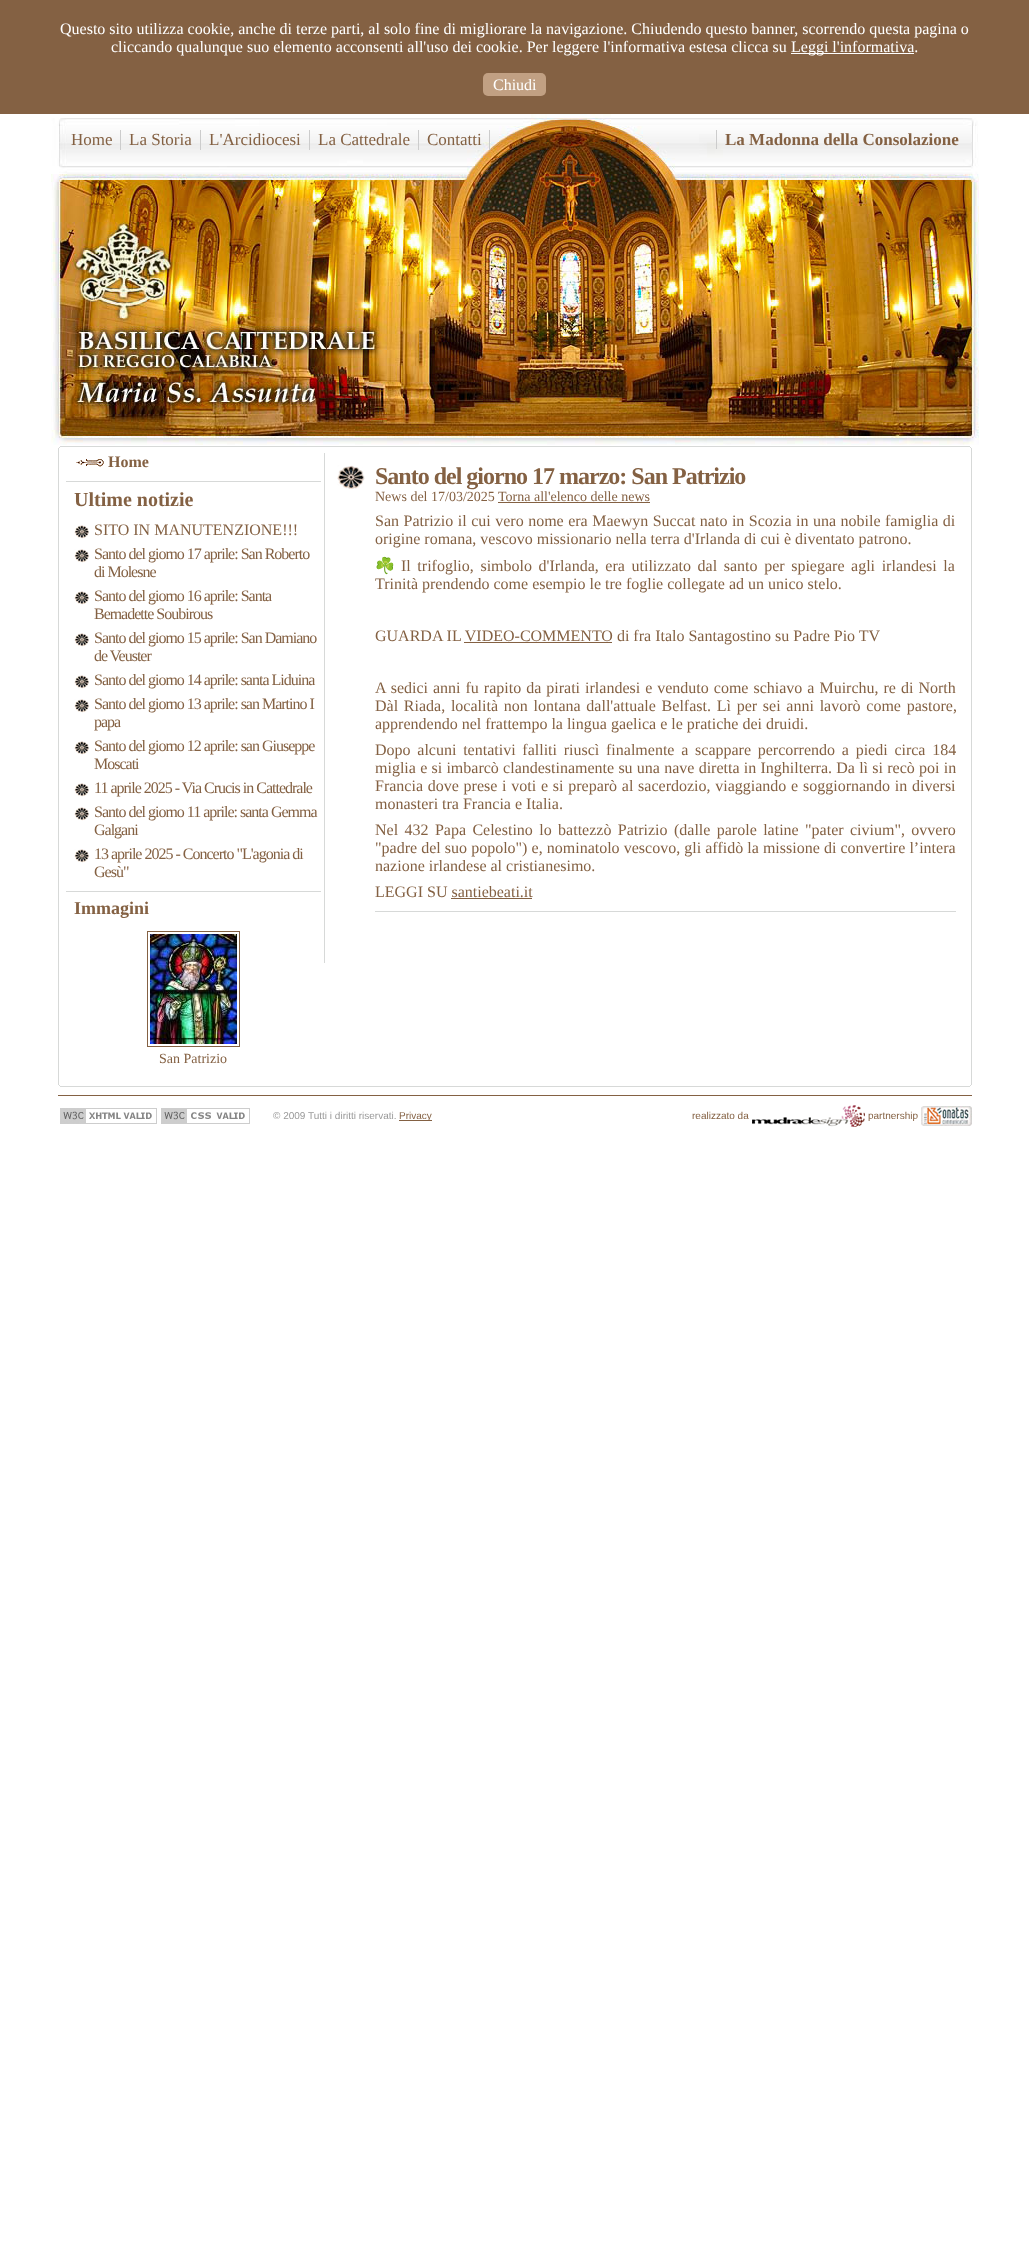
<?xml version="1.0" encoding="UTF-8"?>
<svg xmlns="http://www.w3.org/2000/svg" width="1029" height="2247">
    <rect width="100%" height="100%" fill="#FFFFFF"/>
    <rect x="0" y="0" width="1029" height="114" fill="#846143"/>
    <text x="60" y="34" font-family="Liberation Serif" font-size="16" fill="#FFFFFF">Questo sito utilizza cookie, anche di terze parti, al solo fine di migliorare la navigazione. Chiudendo questo banner, scorrendo questa pagina o</text>
    <text x="111" y="52" font-family="Liberation Serif" font-size="16" fill="#FFFFFF">cliccando qualunque suo elemento acconsenti all'uso dei cookie. Per leggere l'informativa estesa clicca su</text>
    <rect x="791" y="53" width="123" height="1" fill="#FFFFFF"/>
    <text x="791" y="52" font-family="Liberation Serif" font-size="16" fill="#FFFFFF">Leggi l'informativa.</text>
    <rect x="483" y="73" width="63" height="23" rx="5" fill="#C1A083"/>
    <text x="493" y="90" font-family="Liberation Serif" font-size="16" fill="#FFFFFF">Chiudi</text>
    <image x="51" y="114" width="928" height="331" href="img_01.png"/>
    <rect x="120" y="130" width="1" height="20" fill="#CCCCCC"/>
    <text x="71" y="145" font-family="Liberation Serif" font-size="17" fill="#846143">Home</text>
    <rect x="200" y="130" width="1" height="20" fill="#CCCCCC"/>
    <text x="129" y="145" font-family="Liberation Serif" font-size="17" fill="#846143">La Storia</text>
    <rect x="309" y="130" width="1" height="20" fill="#CCCCCC"/>
    <text x="209" y="145" font-family="Liberation Serif" font-size="17" fill="#846143">L'Arcidiocesi</text>
    <rect x="418" y="130" width="1" height="20" fill="#CCCCCC"/>
    <text x="318" y="145" font-family="Liberation Serif" font-size="17" fill="#846143">La Cattedrale</text>
    <rect x="489" y="130" width="1" height="20" fill="#CCCCCC"/>
    <text x="427" y="145" font-family="Liberation Serif" font-size="17" fill="#846143">Contatti</text>
    <text x="725" y="145" font-family="Liberation Serif" font-size="17" font-weight="700" fill="#846143">La Madonna della Consolazione</text>
    <rect x="716" y="130" width="1" height="19" fill="#CCCCCC"/>
    <rect x="60" y="446" width="910" height="1" fill="#D7D9D8"/>
    <rect x="970" y="447" width="1" height="1" fill="#D7D9D8"/>
    <rect x="59" y="447" width="1" height="1" fill="#D7D9D8"/>
    <rect x="971" y="448" width="1" height="637" fill="#D7D9D8"/>
    <rect x="58" y="448" width="1" height="637" fill="#D7D9D8"/>
    <image x="76" y="459" width="28" height="8" href="img_02.png"/>
    <text x="108" y="467" font-family="Liberation Serif" font-size="16" font-weight="700" fill="#846143">Home</text>
    <rect x="66" y="481" width="255" height="1" fill="#D7D9D8"/>
    <text x="74" y="506" font-family="Liberation Serif" font-size="20" font-weight="700" fill="#846143">Ultime notizie</text>
    <image x="74" y="525" width="16" height="14" href="img_03.png"/>
    <text x="94" y="535" font-family="Liberation Serif" font-size="16" fill="#846143">SITO IN MANUTENZIONE!!!</text>
    <image x="74" y="549" width="16" height="14" href="img_03.png"/>
    <text font-family="Liberation Serif" font-size="16" letter-spacing="-1" fill="#846143">
        <tspan x="94" y="559">Santo del giorno 17 aprile: San Roberto</tspan>
        <tspan x="94" y="577">di Molesne</tspan>
    </text>
    <image x="74" y="591" width="16" height="14" href="img_03.png"/>
    <text font-family="Liberation Serif" font-size="16" letter-spacing="-1" fill="#846143">
        <tspan x="94" y="601">Santo del giorno 16 aprile: Santa</tspan>
        <tspan x="94" y="619">Bernadette Soubirous</tspan>
    </text>
    <image x="74" y="633" width="16" height="14" href="img_03.png"/>
    <text font-family="Liberation Serif" font-size="16" letter-spacing="-1" fill="#846143">
        <tspan x="94" y="643">Santo del giorno 15 aprile: San Damiano</tspan>
        <tspan x="94" y="661">de Veuster</tspan>
    </text>
    <image x="74" y="675" width="16" height="14" href="img_03.png"/>
    <text x="94" y="685" font-family="Liberation Serif" font-size="16" letter-spacing="-1" fill="#846143">Santo del giorno 14 aprile: santa Liduina</text>
    <image x="74" y="699" width="16" height="14" href="img_03.png"/>
    <text font-family="Liberation Serif" font-size="16" letter-spacing="-1" fill="#846143">
        <tspan x="94" y="709">Santo del giorno 13 aprile: san Martino I</tspan>
        <tspan x="94" y="727">papa</tspan>
    </text>
    <image x="74" y="741" width="16" height="14" href="img_03.png"/>
    <text font-family="Liberation Serif" font-size="16" letter-spacing="-1" fill="#846143">
        <tspan x="94" y="751">Santo del giorno 12 aprile: san Giuseppe</tspan>
        <tspan x="94" y="769">Moscati</tspan>
    </text>
    <image x="74" y="783" width="16" height="14" href="img_03.png"/>
    <text x="94" y="793" font-family="Liberation Serif" font-size="16" letter-spacing="-1" fill="#846143">11 aprile 2025 - Via Crucis in Cattedrale</text>
    <image x="74" y="807" width="16" height="14" href="img_03.png"/>
    <text font-family="Liberation Serif" font-size="16" letter-spacing="-1" fill="#846143">
        <tspan x="94" y="817">Santo del giorno 11 aprile: santa Gemma</tspan>
        <tspan x="94" y="835">Galgani</tspan>
    </text>
    <image x="74" y="849" width="16" height="14" href="img_03.png"/>
    <text font-family="Liberation Serif" font-size="16" letter-spacing="-1" fill="#846143">
        <tspan x="94" y="859">13 aprile 2025 - Concerto "L'agonia di</tspan>
        <tspan x="94" y="877">Gesù"</tspan>
    </text>
    <rect x="66" y="891" width="255" height="1" fill="#D7D9D8"/>
    <text x="74" y="914" font-family="Liberation Serif" font-size="18" font-weight="700" fill="#846143">Immagini</text>
    <rect x="147.5" y="931.5" width="92" height="115" fill="none" stroke="#846143"/>
    <image x="150" y="934" width="87" height="110" href="img_04.png"/>
    <text x="159" y="1063" font-family="Liberation Serif" font-size="14" fill="#846143">San Patrizio</text>
    <image x="337" y="465" width="28" height="24" href="img_05.png"/>
    <rect x="324" y="453" width="1" height="510" fill="#D7D9D8"/>
    <text x="375" y="484" font-family="Liberation Serif" font-size="24" font-weight="700" letter-spacing="-1" fill="#846143">Santo del giorno 17 marzo: San Patrizio</text>
    <text x="375" y="501" font-family="Liberation Serif" font-size="14" fill="#846143">News del 17/03/2025 Torna all'elenco delle news</text>
    <rect x="498" y="502" width="152" height="1" fill="#846143"/>
    <text font-family="Liberation Serif" font-size="16" fill="#846143">
        <tspan x="375" y="526" word-spacing="0.5">San Patrizio il cui vero nome era Maewyn Succat nato in Scozia in una nobile famiglia di</tspan>
        <tspan x="375" y="544">origine romana, vescovo missionario nella terra d'Irlanda di cui è diventato patrono.</tspan>
    </text>
    <text x="375" y="571" font-family="Noto Color Emoji" font-size="16" fill="#846143">☘️</text>
    <text x="401" y="571" word-spacing="2.6" font-family="Liberation Serif" font-size="16" fill="#846143">Il trifoglio, simbolo d'Irlanda, era utilizzato dal santo per spiegare agli irlandesi la</text>
    <text x="375" y="589" font-family="Liberation Serif" font-size="16" fill="#846143">Trinità prendendo come esempio le tre foglie collegate ad un unico stelo.</text>
    <text x="375" y="641" font-family="Liberation Serif" font-size="16" fill="#846143">GUARDA IL VIDEO-COMMENTO di fra Italo Santagostino su Padre Pio TV</text>
    <rect x="464" y="642" width="148" height="1" fill="#846143"/>
    <text font-family="Liberation Serif" font-size="16" fill="#846143">
        <tspan x="375" y="693" word-spacing="1">A sedici anni fu rapito da pirati irlandesi e venduto come schiavo a Muirchu, re di North</tspan>
        <tspan x="375" y="711" word-spacing="1.75">Dàl Riada, località non lontana dall'attuale Belfast. Lì per sei anni lavorò come pastore,</tspan>
        <tspan x="375" y="729">apprendendo nel frattempo la lingua gaelica e le pratiche dei druidi.</tspan>
        <tspan x="375" y="755" word-spacing="2.75">Dopo alcuni tentativi falliti riuscì finalmente a scappare percorrendo a piedi circa 184</tspan>
        <tspan x="375" y="773" word-spacing="0.25">miglia e si imbarcò clandestinamente su una nave diretta in Inghilterra. Da lì si recò poi in</tspan>
        <tspan x="375" y="791" word-spacing="0.75">Francia dove prese i voti e si preparò al sacerdozio, viaggiando e soggiornando in diversi</tspan>
        <tspan x="375" y="809">monasteri tra Francia e Italia.</tspan>
        <tspan x="375" y="835" word-spacing="2.4">Nel 432 Papa Celestino lo battezzò Patrizio (dalle parole latine "pater civium", ovvero</tspan>
        <tspan x="375" y="853" word-spacing="0.1">"padre del suo popolo") e, nominatolo vescovo, gli affidò la missione di convertire l’intera</tspan>
        <tspan x="375" y="871">nazione irlandese al cristianesimo.</tspan>
        <tspan x="375" y="897">LEGGI SU santiebeati.it</tspan>
    </text>
    <rect x="451" y="898" width="81" height="1" fill="#846143"/>
    <rect x="375" y="911" width="581" height="1" fill="#D7D9D8"/>
    <rect x="970" y="1085" width="1" height="1" fill="#D7D9D8"/>
    <rect x="59" y="1085" width="1" height="1" fill="#D7D9D8"/>
    <rect x="60" y="1086" width="910" height="1" fill="#D7D9D8"/>
    <rect x="58" y="1095" width="914" height="1" fill="#846143"/>
    <image x="60" y="1108" width="97" height="16" href="img_06.png"/>
    <image x="161" y="1108" width="89" height="16" href="img_07.png"/>
    <text x="273" y="1119" font-family="Liberation Sans" font-size="10" fill="#999999">© 2009 Tutti i diritti riservati.</text>
    <rect x="399" y="1120" width="33" height="1" fill="#846143"/>
    <text x="399" y="1119" font-family="Liberation Sans" font-size="10" fill="#846143">Privacy</text>
    <text x="692" y="1119" font-family="Liberation Sans" font-size="10" fill="#846143">realizzato da</text>
    <image x="752" y="1105" width="113" height="22" href="img_08.png"/>
    <text x="868" y="1119" font-family="Liberation Sans" font-size="10" fill="#846143">partnership</text>
    <image x="921" y="1106" width="51" height="20" href="img_09.png"/>
</svg>
